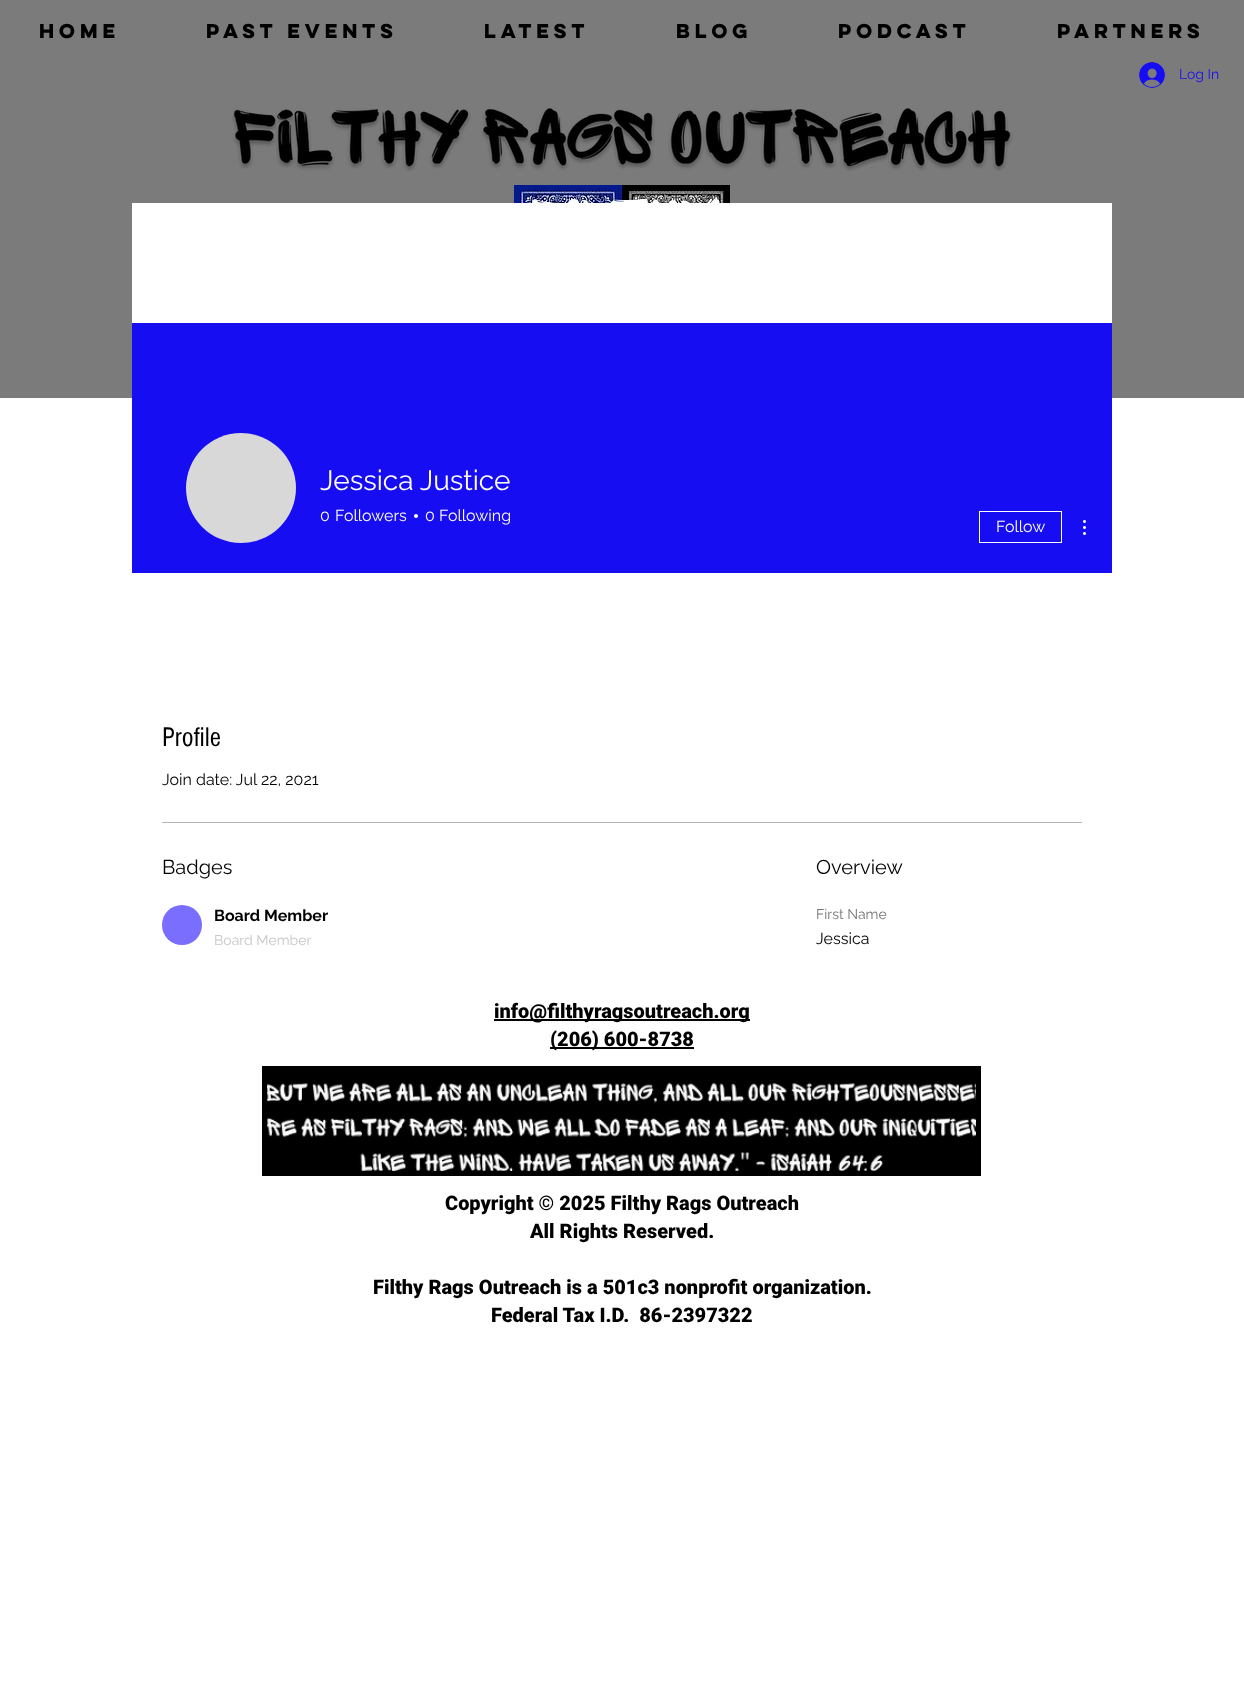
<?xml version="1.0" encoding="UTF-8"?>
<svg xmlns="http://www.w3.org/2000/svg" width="1244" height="1693">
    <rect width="100%" height="100%" fill="#FFFFFF"/>
    <rect x="0" y="0" width="1244" height="398" fill="#7B7B7B"/>
    <text x="39" y="38" font-family="'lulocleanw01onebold'" font-size="18" font-weight="700" letter-spacing="0.9" fill="#000000">HOME</text>
    <text x="206" y="38" font-family="'lulocleanw01onebold'" font-size="18" font-weight="700" letter-spacing="0.9" fill="#000000">PAST EVENTS</text>
    <text x="484" y="38" font-family="'lulocleanw01onebold'" font-size="18" font-weight="700" letter-spacing="0.9" fill="#000000">LATEST</text>
    <text x="676" y="38" font-family="'lulocleanw01onebold'" font-size="18" font-weight="700" letter-spacing="0.9" fill="#000000">BLOG</text>
    <text x="838" y="38" font-family="'lulocleanw01onebold'" font-size="18" font-weight="700" letter-spacing="0.9" fill="#000000">PODCAST</text>
    <text x="1057" y="38" font-family="'lulocleanw01onebold'" font-size="18" font-weight="700" letter-spacing="0.9" fill="#000000">PARTNERS</text>
    <image x="1139" y="62" width="26" height="26" href="img_01.png"/>
    <text x="1179" y="79" font-family="Raleway" font-size="14" fill="#170DF2">Log In</text>
    <image x="232" y="108" width="781" height="63" href="img_02.png"/>
    <image x="514" y="185" width="216" height="18" href="img_03.png"/>
    <rect x="132" y="203" width="980" height="120" fill="#FFFFFF"/>
    <rect x="132" y="323" width="980" height="250" fill="#170DF2"/>
    <circle cx="241" cy="488" r="55" fill="#D8D8D8"/>
    <text x="320" y="490" font-family="Raleway" font-size="28" fill="#FFFFFF">Jessica Justice</text>
    <text x="320" y="521" font-family="Raleway" font-size="16" fill="#FFFFFF">0</text>
    <text x="335" y="521" font-family="Raleway" font-size="16" fill="#FFFFFF">Followers</text>
    <circle cx="416" cy="516" r="2" fill="#FFFFFF"/>
    <text x="425" y="521" font-family="Raleway" font-size="16" fill="#FFFFFF">0</text>
    <text x="439" y="521" font-family="Raleway" font-size="16" fill="#FFFFFF">Following</text>
    <rect x="979.5" y="511.5" width="82" height="31" fill="none" stroke="#FFFFFF"/>
    <text x="996" y="532" font-family="Raleway" font-size="16" fill="#FFFFFF">Follow</text>
    <image x="1083" y="520" width="3" height="15" href="img_04.png"/>
    <text x="162" y="746" font-family="'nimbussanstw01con'" font-size="28" fill="#000000">Profile</text>
    <text x="162" y="785" font-family="Raleway" font-size="16" fill="#000000">Join date: Jul 22, 2021</text>
    <rect x="162" y="822" width="920" height="1" fill="#B3B3B3"/>
    <text x="162" y="874" font-family="Raleway" font-size="20" fill="#000000">Badges</text>
    <circle cx="182" cy="925" r="20" fill="#796EFF"/>
    <text x="214" y="921" font-family="Raleway" font-size="16" font-weight="700" fill="#000000">Board Member</text>
    <text x="214" y="945" font-family="Raleway" font-size="14" fill="#C7C7C7">Board Member</text>
    <text x="816" y="874" font-family="Raleway" font-size="20" fill="#000000">Overview</text>
    <text x="816" y="919" font-family="Raleway" font-size="14" fill="#757575">First Name</text>
    <text x="816" y="944" font-family="Raleway" font-size="16" fill="#000000">Jessica</text>
    <rect x="494" y="1019" width="256" height="2" fill="#000000"/>
    <text x="494" y="1018" font-family="Roboto" font-size="20" font-weight="900" fill="#000000">info@filthyragsoutreach.org</text>
    <rect x="550" y="1047" width="144" height="2" fill="#000000"/>
    <text x="550" y="1046" font-family="Roboto" font-size="20" font-weight="900" fill="#000000">(206) 600-8738</text>
    <rect x="262" y="1066" width="719" height="110" fill="#000000"/>
    <image x="267" y="1082" width="709" height="89" href="img_05.png"/>
    <text x="445" y="1210" font-family="Roboto" font-size="20" font-weight="900" fill="#000000">Copyright © 2025 Filthy Rags Outreach</text>
    <text x="530" y="1238" font-family="Roboto" font-size="20" font-weight="900" fill="#000000">All Rights Reserved.</text>
    <text x="373" y="1294" font-family="Roboto" font-size="20" font-weight="900" fill="#000000">Filthy Rags Outreach is a 501c3 nonprofit organization.</text>
    <text x="491" y="1322" font-family="Roboto" font-size="20" font-weight="900" fill="#000000" xml:space="preserve">Federal Tax I.D.  86-2397322</text>
</svg>
